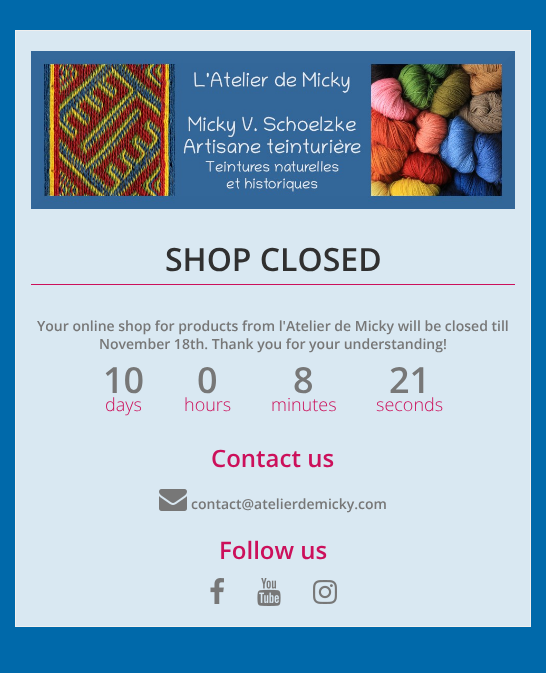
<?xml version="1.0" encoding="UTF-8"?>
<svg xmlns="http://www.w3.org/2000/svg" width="546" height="673">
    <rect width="100%" height="100%" fill="#0069AA"/>
    <rect x="15.5" y="30.5" width="515" height="596" fill="#D9E8F2" stroke="#EFEFEF"/>
    <image x="31" y="51" width="484" height="158" href="img_01.png"/>
    <rect x="31" y="284" width="484" height="1" fill="#CC105B"/>
    <text x="165" y="271" font-family="Open Sans" font-size="32" font-weight="600" fill="#303030">SHOP CLOSED</text>
    <text x="37" y="331" font-family="Open Sans" font-size="14" font-weight="600" fill="#777777">Your online shop for products from l'Atelier de Micky will be closed till</text>
    <text x="99" y="349" font-family="Open Sans" font-size="14" font-weight="600" fill="#777777">November 18th. Thank you for your understanding!</text>
    <text x="103" y="393" font-family="Open Sans" font-size="36" font-weight="600" fill="#777777">10</text>
    <text x="105" y="411" font-family="Open Sans" font-size="18" font-weight="300" fill="#CC105B">days</text>
    <text x="197" y="393" font-family="Open Sans" font-size="36" font-weight="600" fill="#777777">0</text>
    <text x="184" y="411" font-family="Open Sans" font-size="18" font-weight="300" fill="#CC105B">hours</text>
    <text x="293" y="393" font-family="Open Sans" font-size="36" font-weight="600" fill="#777777">8</text>
    <text x="271" y="411" font-family="Open Sans" font-size="18" font-weight="300" fill="#CC105B">minutes</text>
    <text x="389" y="393" font-family="Open Sans" font-size="36" font-weight="600" fill="#777777">21</text>
    <text x="376" y="411" font-family="Open Sans" font-size="18" font-weight="300" fill="#CC105B">seconds</text>
    <text x="211" y="467" font-family="Open Sans" font-size="24" font-weight="600" fill="#CC105B">Contact us</text>
    <image x="159" y="489" width="28" height="22" href="img_02.png"/>
    <text x="191" y="509" font-family="Open Sans" font-size="14" font-weight="600" fill="#777777">contact@atelierdemicky.com</text>
    <text x="219" y="559" font-family="Open Sans" font-size="24" font-weight="600" fill="#CC105B">Follow us</text>
    <image x="210" y="578" width="14" height="26" href="img_03.png"/>
    <image x="257" y="578" width="24" height="28" href="img_04.png"/>
    <image x="313" y="580" width="24" height="24" href="img_05.png"/>
</svg>
